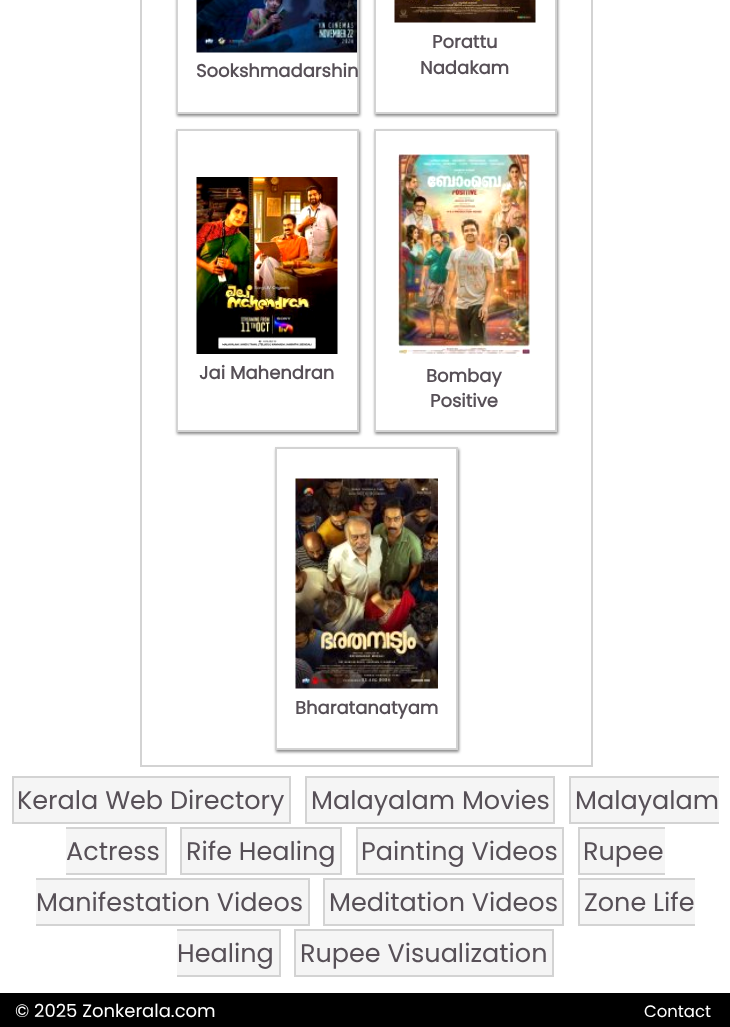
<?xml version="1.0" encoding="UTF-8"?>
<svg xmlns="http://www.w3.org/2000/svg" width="730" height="1027">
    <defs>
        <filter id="blur1" x="-50%" y="-200%" width="200%" height="500%"><feGaussianBlur stdDeviation="1.5"/></filter>
    </defs>
    <rect width="100%" height="100%" fill="#FFFFFF"/>
    <rect x="141" y="-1" width="451" height="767" fill="none" stroke="#D3D3D3" stroke-width="2"/>
    <rect x="177" y="-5" width="183" height="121" fill="#888888" filter="url(#blur1)"/>
    <rect x="177" y="-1" width="181" height="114" fill="#FFFFFF" stroke="#D3D3D3" stroke-width="2"/>
    <image x="196" y="0" width="161" height="53" href="img_01.png"/>
    <text x="196" y="77" font-family="Poppins" font-size="18" font-weight="700" fill="#575057">Sookshmadarshin</text>
    <rect x="375" y="-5" width="183" height="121" fill="#888888" filter="url(#blur1)"/>
    <rect x="375" y="-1" width="181" height="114" fill="#FFFFFF" stroke="#D3D3D3" stroke-width="2"/>
    <image x="394" y="0" width="142" height="23" href="img_02.png"/>
    <text x="432" y="48" font-family="Poppins" font-size="18" font-weight="700" fill="#575057">Porattu</text>
    <text x="420" y="74" font-family="Poppins" font-size="18" font-weight="700" fill="#575057">Nadakam</text>
    <rect x="177" y="131" width="183" height="303" fill="#888888" filter="url(#blur1)"/>
    <rect x="177" y="130" width="181" height="301" fill="#FFFFFF" stroke="#D3D3D3" stroke-width="2"/>
    <image x="196" y="177" width="142" height="177" href="img_03.png"/>
    <text x="199" y="379" font-family="Poppins" font-size="18" font-weight="700" fill="#575057">Jai Mahendran</text>
    <rect x="375" y="131" width="183" height="303" fill="#888888" filter="url(#blur1)"/>
    <rect x="375" y="130" width="181" height="301" fill="#FFFFFF" stroke="#D3D3D3" stroke-width="2"/>
    <image x="397" y="153" width="134" height="204" href="img_04.png"/>
    <text x="426" y="382" font-family="Poppins" font-size="18" font-weight="700" fill="#575057">Bombay</text>
    <text x="430" y="407" font-family="Poppins" font-size="18" font-weight="700" fill="#575057">Positive</text>
    <rect x="276" y="449" width="183" height="303" fill="#888888" filter="url(#blur1)"/>
    <rect x="276" y="448" width="181" height="301" fill="#FFFFFF" stroke="#D3D3D3" stroke-width="2"/>
    <image x="295" y="478" width="143" height="211" href="img_05.png"/>
    <text x="295" y="714" font-family="Poppins" font-size="18" font-weight="700" fill="#575057">Bharatanatyam</text>
    <rect x="13" y="777" width="277" height="46" fill="#F5F5F5" stroke="#D3D3D3" stroke-width="2"/>
    <text x="17" y="809" font-family="Poppins" font-size="25.5" fill="#575057">Kerala Web Directory</text>
    <rect x="306" y="777" width="248" height="46" fill="#F5F5F5" stroke="#D3D3D3" stroke-width="2"/>
    <text x="311" y="809" font-family="Poppins" font-size="25.5" fill="#575057">Malayalam Movies</text>
    <rect x="571" y="778" width="148" height="44" fill="#F5F5F5"/>
    <text x="575" y="809" font-family="Poppins" font-size="25.5" fill="#575057">Malayalam</text>
    <rect x="569" y="776" width="150" height="2" fill="#D3D3D3"/>
    <rect x="569" y="822" width="150" height="2" fill="#D3D3D3"/>
    <rect x="569" y="776" width="2" height="48" fill="#D3D3D3"/>
    <rect x="66" y="829" width="99" height="44" fill="#F5F5F5"/>
    <text x="66" y="860" font-family="Poppins" font-size="25.5" fill="#575057">Actress</text>
    <rect x="66" y="827" width="101" height="2" fill="#D3D3D3"/>
    <rect x="165" y="827" width="2" height="48" fill="#D3D3D3"/>
    <rect x="66" y="873" width="101" height="2" fill="#D3D3D3"/>
    <rect x="181" y="828" width="160" height="46" fill="#F5F5F5" stroke="#D3D3D3" stroke-width="2"/>
    <text x="186" y="860" font-family="Poppins" font-size="25.5" fill="#575057">Rife Healing</text>
    <rect x="357" y="828" width="206" height="46" fill="#F5F5F5" stroke="#D3D3D3" stroke-width="2"/>
    <text x="361" y="860" font-family="Poppins" font-size="25.5" fill="#575057">Painting Videos</text>
    <rect x="580" y="829" width="85" height="44" fill="#F5F5F5"/>
    <text x="583" y="860" font-family="Poppins" font-size="25.5" fill="#575057">Rupee</text>
    <rect x="578" y="827" width="87" height="2" fill="#D3D3D3"/>
    <rect x="578" y="873" width="87" height="2" fill="#D3D3D3"/>
    <rect x="578" y="827" width="2" height="48" fill="#D3D3D3"/>
    <rect x="36" y="880" width="272" height="44" fill="#F5F5F5"/>
    <text x="36" y="911" font-family="Poppins" font-size="25.5" fill="#575057">Manifestation Videos</text>
    <rect x="36" y="878" width="273" height="2" fill="#D3D3D3"/>
    <rect x="308" y="878" width="2" height="48" fill="#D3D3D3"/>
    <rect x="36" y="924" width="273" height="2" fill="#D3D3D3"/>
    <rect x="324" y="879" width="239" height="46" fill="#F5F5F5" stroke="#D3D3D3" stroke-width="2"/>
    <text x="329" y="911" font-family="Poppins" font-size="25.5" fill="#575057">Meditation Videos</text>
    <rect x="580" y="880" width="115" height="44" fill="#F5F5F5"/>
    <text x="584" y="911" font-family="Poppins" font-size="25.5" fill="#575057">Zone Life</text>
    <rect x="578" y="878" width="117" height="2" fill="#D3D3D3"/>
    <rect x="578" y="924" width="117" height="2" fill="#D3D3D3"/>
    <rect x="578" y="878" width="2" height="48" fill="#D3D3D3"/>
    <rect x="177" y="931" width="102" height="44" fill="#F5F5F5"/>
    <text x="177" y="962" font-family="Poppins" font-size="25.5" fill="#575057">Healing</text>
    <rect x="177" y="929" width="104" height="2" fill="#D3D3D3"/>
    <rect x="279" y="929" width="2" height="48" fill="#D3D3D3"/>
    <rect x="177" y="975" width="104" height="2" fill="#D3D3D3"/>
    <rect x="295" y="930" width="258" height="46" fill="#F5F5F5" stroke="#D3D3D3" stroke-width="2"/>
    <text x="300" y="962" font-family="Poppins" font-size="25.5" fill="#575057">Rupee Visualization</text>
    <rect x="0" y="993" width="730" height="34" fill="#000000"/>
    <text x="15" y="1017" font-family="Poppins" font-size="18" fill="#FFFFFF">© 2025 Zonkerala.com</text>
    <text x="644" y="1017" font-family="Poppins" font-size="16.5" fill="#FFFFFF">Contact</text>
</svg>
